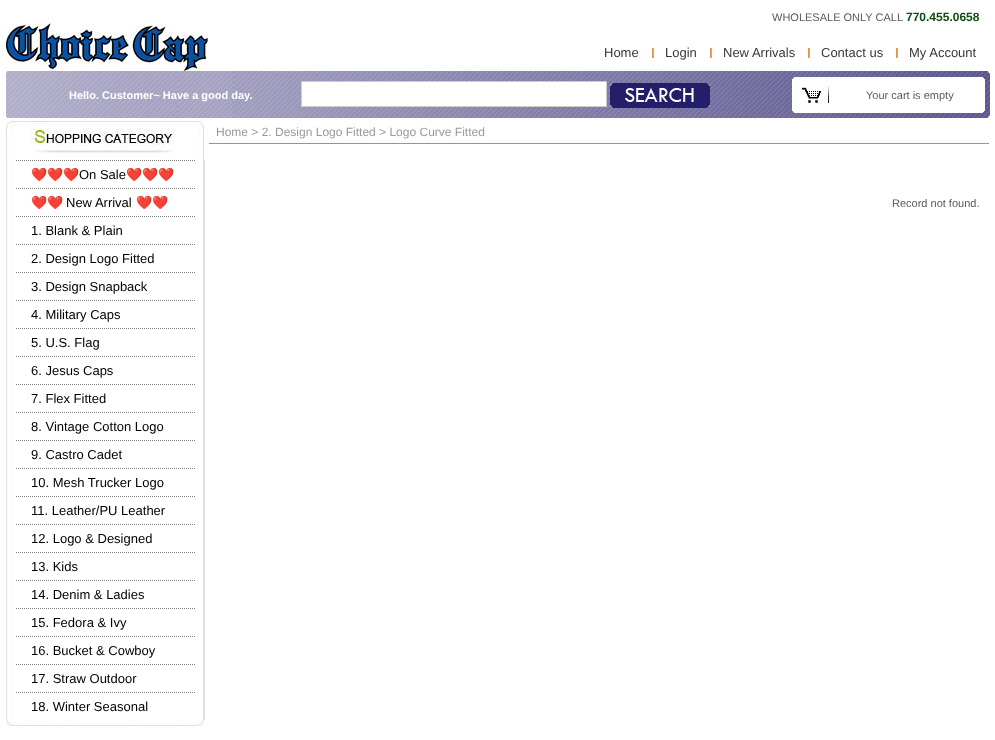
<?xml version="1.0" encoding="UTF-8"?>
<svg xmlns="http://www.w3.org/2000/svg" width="995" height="740">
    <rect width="100%" height="100%" fill="#FFFFFF"/>
    <image x="6" y="18" width="202" height="53" href="img_01.png"/>
    <text x="772" y="21" font-family="Liberation Sans" font-size="11" fill="#5A5A5A">WHOLESALE ONLY CALL</text>
    <text x="906" y="21" font-family="Liberation Sans" font-size="12" font-weight="700" fill="#0D4D10">770.455.0658</text>
    <text x="604" y="57" font-family="Liberation Sans" font-size="13" fill="#393939">Home</text>
    <image x="652" y="48" width="2" height="10" href="img_02.png"/>
    <text x="665" y="57" font-family="Liberation Sans" font-size="13" fill="#393939">Login</text>
    <image x="710" y="48" width="2" height="10" href="img_02.png"/>
    <text x="723" y="57" font-family="Liberation Sans" font-size="13" fill="#393939">New Arrivals</text>
    <image x="808" y="48" width="2" height="10" href="img_02.png"/>
    <text x="821" y="57" font-family="Liberation Sans" font-size="13" fill="#393939">Contact us</text>
    <image x="896" y="48" width="2" height="10" href="img_02.png"/>
    <text x="909" y="57" font-family="Liberation Sans" font-size="13" fill="#393939">My Account</text>
    <image x="6" y="71" width="984" height="47" href="img_03.png"/>
    <text x="69" y="99" font-family="Liberation Sans" font-size="11" font-weight="700" fill="#FFFFFF">Hello. Customer~ Have a good day.</text>
    <rect x="301.5" y="81.5" width="305" height="25" fill="#FFFFFF" stroke="#CCCCCC"/>
    <image x="610" y="83" width="100" height="25" href="img_04.png"/>
    <text x="866" y="99" font-family="Liberation Sans" font-size="11" fill="#5A5A5A">Your cart is empty</text>
    <image x="6" y="120" width="198" height="40" href="img_05.png"/>
    <image x="6" y="160" width="199" height="560" href="img_06.png"/>
    <path d="M 16 160.5 H 196" fill="none" stroke="#828282" stroke-dasharray="1 1"/>
    <text x="31" y="179" font-family="Noto Color Emoji" font-size="13" fill="#000000">❤️❤️❤️</text>
    <text x="79" y="179" font-family="Liberation Sans" font-size="13" fill="#000000">On Sale</text>
    <text x="126" y="179" font-family="Noto Color Emoji" font-size="13" fill="#000000">❤️❤️❤️</text>
    <path d="M 16 188.5 H 196" fill="none" stroke="#828282" stroke-dasharray="1 1"/>
    <text x="31" y="207" font-family="Noto Color Emoji" font-size="13" fill="#000000">❤️❤️</text>
    <text x="66" y="207" font-family="Liberation Sans" font-size="13" fill="#000000">New Arrival</text>
    <text x="136" y="207" font-family="Noto Color Emoji" font-size="13" fill="#000000">❤️❤️</text>
    <path d="M 16 216.5 H 196" fill="none" stroke="#828282" stroke-dasharray="1 1"/>
    <text x="31" y="235" font-family="Liberation Sans" font-size="13" fill="#000000">1. Blank &amp; Plain</text>
    <path d="M 16 244.5 H 196" fill="none" stroke="#828282" stroke-dasharray="1 1"/>
    <text x="31" y="263" font-family="Liberation Sans" font-size="13" fill="#000000">2. Design Logo Fitted</text>
    <path d="M 16 272.5 H 196" fill="none" stroke="#828282" stroke-dasharray="1 1"/>
    <text x="31" y="291" font-family="Liberation Sans" font-size="13" fill="#000000">3. Design Snapback</text>
    <path d="M 16 300.5 H 196" fill="none" stroke="#828282" stroke-dasharray="1 1"/>
    <text x="31" y="319" font-family="Liberation Sans" font-size="13" fill="#000000">4. Military Caps</text>
    <path d="M 16 328.5 H 196" fill="none" stroke="#828282" stroke-dasharray="1 1"/>
    <text x="31" y="347" font-family="Liberation Sans" font-size="13" fill="#000000">5. U.S. Flag</text>
    <path d="M 16 356.5 H 196" fill="none" stroke="#828282" stroke-dasharray="1 1"/>
    <text x="31" y="375" font-family="Liberation Sans" font-size="13" fill="#000000">6. Jesus Caps</text>
    <path d="M 16 384.5 H 196" fill="none" stroke="#828282" stroke-dasharray="1 1"/>
    <text x="31" y="403" font-family="Liberation Sans" font-size="13" fill="#000000">7. Flex Fitted</text>
    <path d="M 16 412.5 H 196" fill="none" stroke="#828282" stroke-dasharray="1 1"/>
    <text x="31" y="431" font-family="Liberation Sans" font-size="13" fill="#000000">8. Vintage Cotton Logo</text>
    <path d="M 16 440.5 H 196" fill="none" stroke="#828282" stroke-dasharray="1 1"/>
    <text x="31" y="459" font-family="Liberation Sans" font-size="13" fill="#000000">9. Castro Cadet</text>
    <path d="M 16 468.5 H 196" fill="none" stroke="#828282" stroke-dasharray="1 1"/>
    <text x="31" y="487" font-family="Liberation Sans" font-size="13" fill="#000000">10. Mesh Trucker Logo</text>
    <path d="M 16 496.5 H 196" fill="none" stroke="#828282" stroke-dasharray="1 1"/>
    <text x="31" y="515" font-family="Liberation Sans" font-size="13" fill="#000000">11. Leather/PU Leather</text>
    <path d="M 16 524.5 H 196" fill="none" stroke="#828282" stroke-dasharray="1 1"/>
    <text x="31" y="543" font-family="Liberation Sans" font-size="13" fill="#000000">12. Logo &amp; Designed</text>
    <path d="M 16 552.5 H 196" fill="none" stroke="#828282" stroke-dasharray="1 1"/>
    <text x="31" y="571" font-family="Liberation Sans" font-size="13" fill="#000000">13. Kids</text>
    <path d="M 16 580.5 H 196" fill="none" stroke="#828282" stroke-dasharray="1 1"/>
    <text x="31" y="599" font-family="Liberation Sans" font-size="13" fill="#000000">14. Denim &amp; Ladies</text>
    <path d="M 16 608.5 H 196" fill="none" stroke="#828282" stroke-dasharray="1 1"/>
    <text x="31" y="627" font-family="Liberation Sans" font-size="13" fill="#000000">15. Fedora &amp; Ivy</text>
    <path d="M 16 636.5 H 196" fill="none" stroke="#828282" stroke-dasharray="1 1"/>
    <text x="31" y="655" font-family="Liberation Sans" font-size="13" fill="#000000">16. Bucket &amp; Cowboy</text>
    <path d="M 16 664.5 H 196" fill="none" stroke="#828282" stroke-dasharray="1 1"/>
    <text x="31" y="683" font-family="Liberation Sans" font-size="13" fill="#000000">17. Straw Outdoor</text>
    <path d="M 16 692.5 H 196" fill="none" stroke="#828282" stroke-dasharray="1 1"/>
    <text x="31" y="711" font-family="Liberation Sans" font-size="13" fill="#000000">18. Winter Seasonal</text>
    <image x="6" y="720" width="198" height="6" href="img_07.png"/>
    <rect x="209" y="143" width="780" height="1" fill="#869AA5"/>
    <text x="216" y="136" font-family="Liberation Sans" font-size="12" fill="#999999">Home &gt; 2. Design Logo Fitted &gt; Logo Curve Fitted</text>
    <text x="892" y="207" font-family="Liberation Sans" font-size="11" fill="#5A5A5A">Record not found.</text>
</svg>
